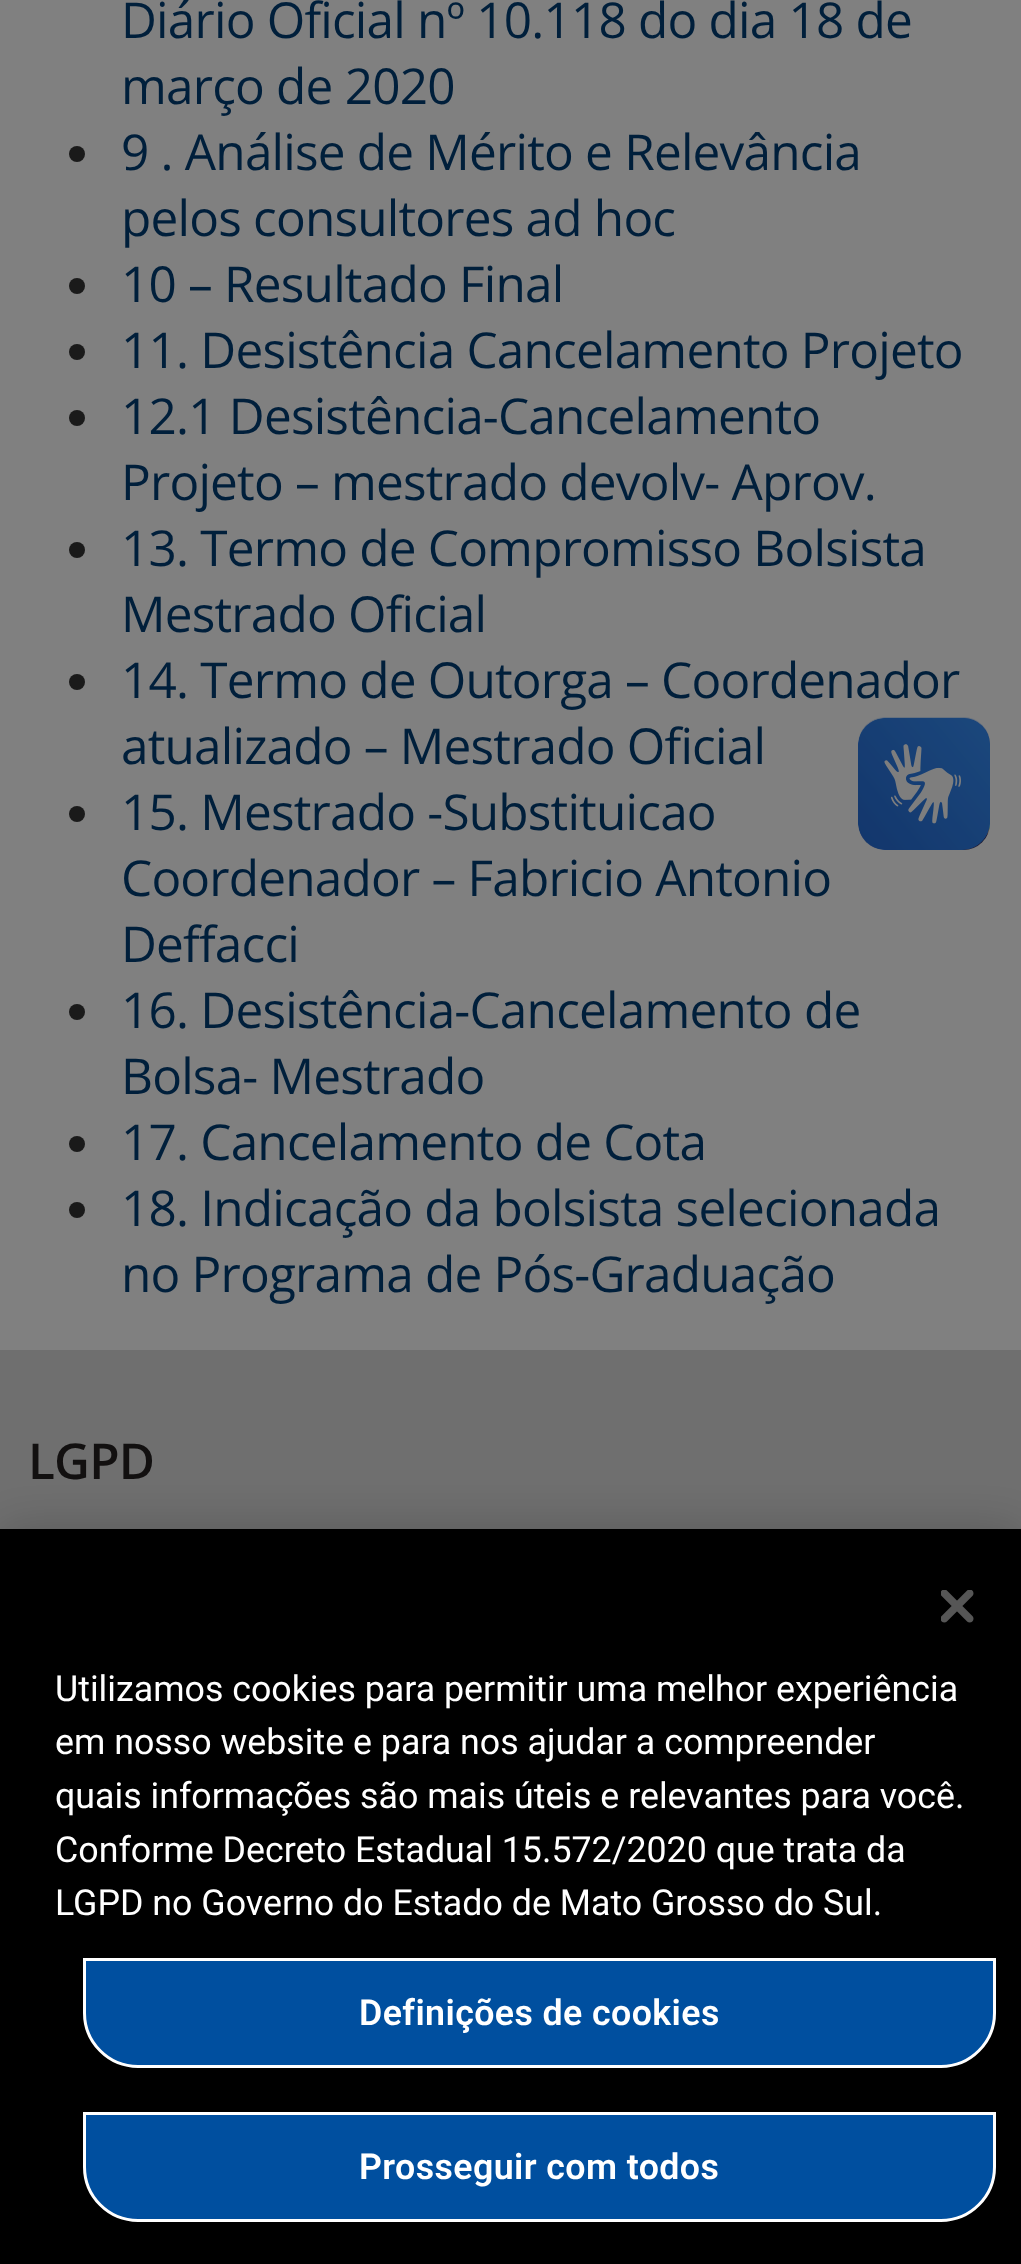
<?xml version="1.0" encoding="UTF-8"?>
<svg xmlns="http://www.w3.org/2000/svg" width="1021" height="2264">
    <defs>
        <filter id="blur1" x="-50%" y="-200%" width="200%" height="500%"><feGaussianBlur stdDeviation="25"/></filter>
    </defs>
    <rect width="100%" height="100%" fill="#808080"/>
    <text font-family="Open Sans" font-size="49.5" letter-spacing="-0.8" fill="#001F3B">
        <tspan x="121" y="38">Diário Oficial nº 10.118 do dia 18 de</tspan>
        <tspan x="121" y="104">março de 2020</tspan>
    </text>
    <circle cx="77" cy="154" r="8" fill="#1A1A1A"/>
    <text font-family="Open Sans" font-size="49.5" letter-spacing="-0.8" fill="#001F3B">
        <tspan x="121" y="170">9 . Análise de Mérito e Relevância</tspan>
        <tspan x="121" y="236">pelos consultores ad hoc</tspan>
    </text>
    <circle cx="77" cy="286" r="8" fill="#1A1A1A"/>
    <text x="121" y="302" font-family="Open Sans" font-size="49.5" letter-spacing="-0.8" fill="#001F3B">10 – Resultado Final</text>
    <circle cx="77" cy="352" r="8" fill="#1A1A1A"/>
    <text x="121" y="368" font-family="Open Sans" font-size="49.5" letter-spacing="-0.8" fill="#001F3B">11. Desistência Cancelamento Projeto</text>
    <circle cx="77" cy="418" r="8" fill="#1A1A1A"/>
    <text font-family="Open Sans" font-size="49.5" letter-spacing="-0.8" fill="#001F3B">
        <tspan x="121" y="434" word-spacing="1">12.1 Desistência-Cancelamento</tspan>
        <tspan x="121" y="500">Projeto – mestrado devolv- Aprov.</tspan>
    </text>
    <circle cx="77" cy="550" r="8" fill="#1A1A1A"/>
    <text font-family="Open Sans" font-size="49.5" letter-spacing="-0.8" fill="#001F3B">
        <tspan x="121" y="566">13. Termo de Compromisso Bolsista</tspan>
        <tspan x="121" y="632">Mestrado Oficial</tspan>
    </text>
    <circle cx="77" cy="682" r="8" fill="#1A1A1A"/>
    <text font-family="Open Sans" font-size="49.5" letter-spacing="-0.8" fill="#001F3B">
        <tspan x="121" y="698">14. Termo de Outorga – Coordenador</tspan>
        <tspan x="121" y="764">atualizado – Mestrado Oficial</tspan>
    </text>
    <circle cx="77" cy="814" r="8" fill="#1A1A1A"/>
    <text font-family="Open Sans" font-size="49.5" letter-spacing="-0.8" fill="#001F3B">
        <tspan x="121" y="830">15. Mestrado -Substituicao</tspan>
        <tspan x="121" y="896">Coordenador – Fabricio Antonio</tspan>
        <tspan x="121" y="962">Deffacci</tspan>
    </text>
    <circle cx="77" cy="1012" r="8" fill="#1A1A1A"/>
    <text font-family="Open Sans" font-size="49.5" letter-spacing="-0.8" fill="#001F3B">
        <tspan x="121" y="1028">16. Desistência-Cancelamento de</tspan>
        <tspan x="121" y="1094">Bolsa- Mestrado</tspan>
    </text>
    <circle cx="77" cy="1144" r="8" fill="#1A1A1A"/>
    <text x="121" y="1160" font-family="Open Sans" font-size="49.5" letter-spacing="-0.8" fill="#001F3B">17. Cancelamento de Cota</text>
    <circle cx="77" cy="1210" r="8" fill="#1A1A1A"/>
    <text font-family="Open Sans" font-size="49.5" letter-spacing="-0.8" fill="#001F3B">
        <tspan x="121" y="1226">18. Indicação da bolsista selecionada</tspan>
        <tspan x="121" y="1292">no Programa de Pós-Graduação</tspan>
    </text>
    <image x="858" y="717" width="132" height="133" href="img_01.png"/>
    <image x="858" y="718" width="132" height="132" href="img_02.png"/>
    <rect x="0" y="1350" width="1021" height="179" fill="#6F6F6F"/>
    <text x="28" y="1479" font-family="Open Sans" font-size="49.5" font-weight="600" letter-spacing="-0.8" fill="#121010">LGPD</text>
    <rect x="0" y="1529" width="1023" height="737" fill="#000000" fill-opacity="0.2" filter="url(#blur1)"/>
    <rect x="0" y="1529" width="1021" height="735" fill="#000000"/>
    <image x="941" y="1590" width="33" height="33" href="img_03.png"/>
    <text font-family="Roboto" font-size="35.75" fill="#FFFFFF">
        <tspan x="55" y="1701">Utilizamos cookies para permitir uma melhor experiência</tspan>
        <tspan x="55" y="1754">em nosso website e para nos ajudar a compreender</tspan>
        <tspan x="55" y="1808">quais informações são mais úteis e relevantes para você.</tspan>
        <tspan x="55" y="1862">Conforme Decreto Estadual 15.572/2020 que trata da</tspan>
        <tspan x="55" y="1915">LGPD no Governo do Estado de Mato Grosso do Sul.</tspan>
    </text>
    <path d="M 84.5 1959.5 H 994.5 V 2013 C 994.5 2042.5 970.5 2066.5 941 2066.5 H 138 C 108.5 2066.5 84.5 2042.5 84.5 2013 Z" fill="#004F9F" stroke="#FFFFFF" stroke-width="3"/>
    <text x="359" y="2025" font-family="Roboto" font-size="35.75" font-weight="600" letter-spacing="0.4" fill="#FFFFFF">Definições de cookies</text>
    <path d="M 84.5 2113.5 H 994.5 V 2167 C 994.5 2196.5 970.5 2220.5 941 2220.5 H 138 C 108.5 2220.5 84.5 2196.5 84.5 2167 Z" fill="#004F9F" stroke="#FFFFFF" stroke-width="3"/>
    <text x="359" y="2179" font-family="Roboto" font-size="35.75" font-weight="600" letter-spacing="0.4" fill="#FFFFFF">Prosseguir com todos</text>
</svg>
